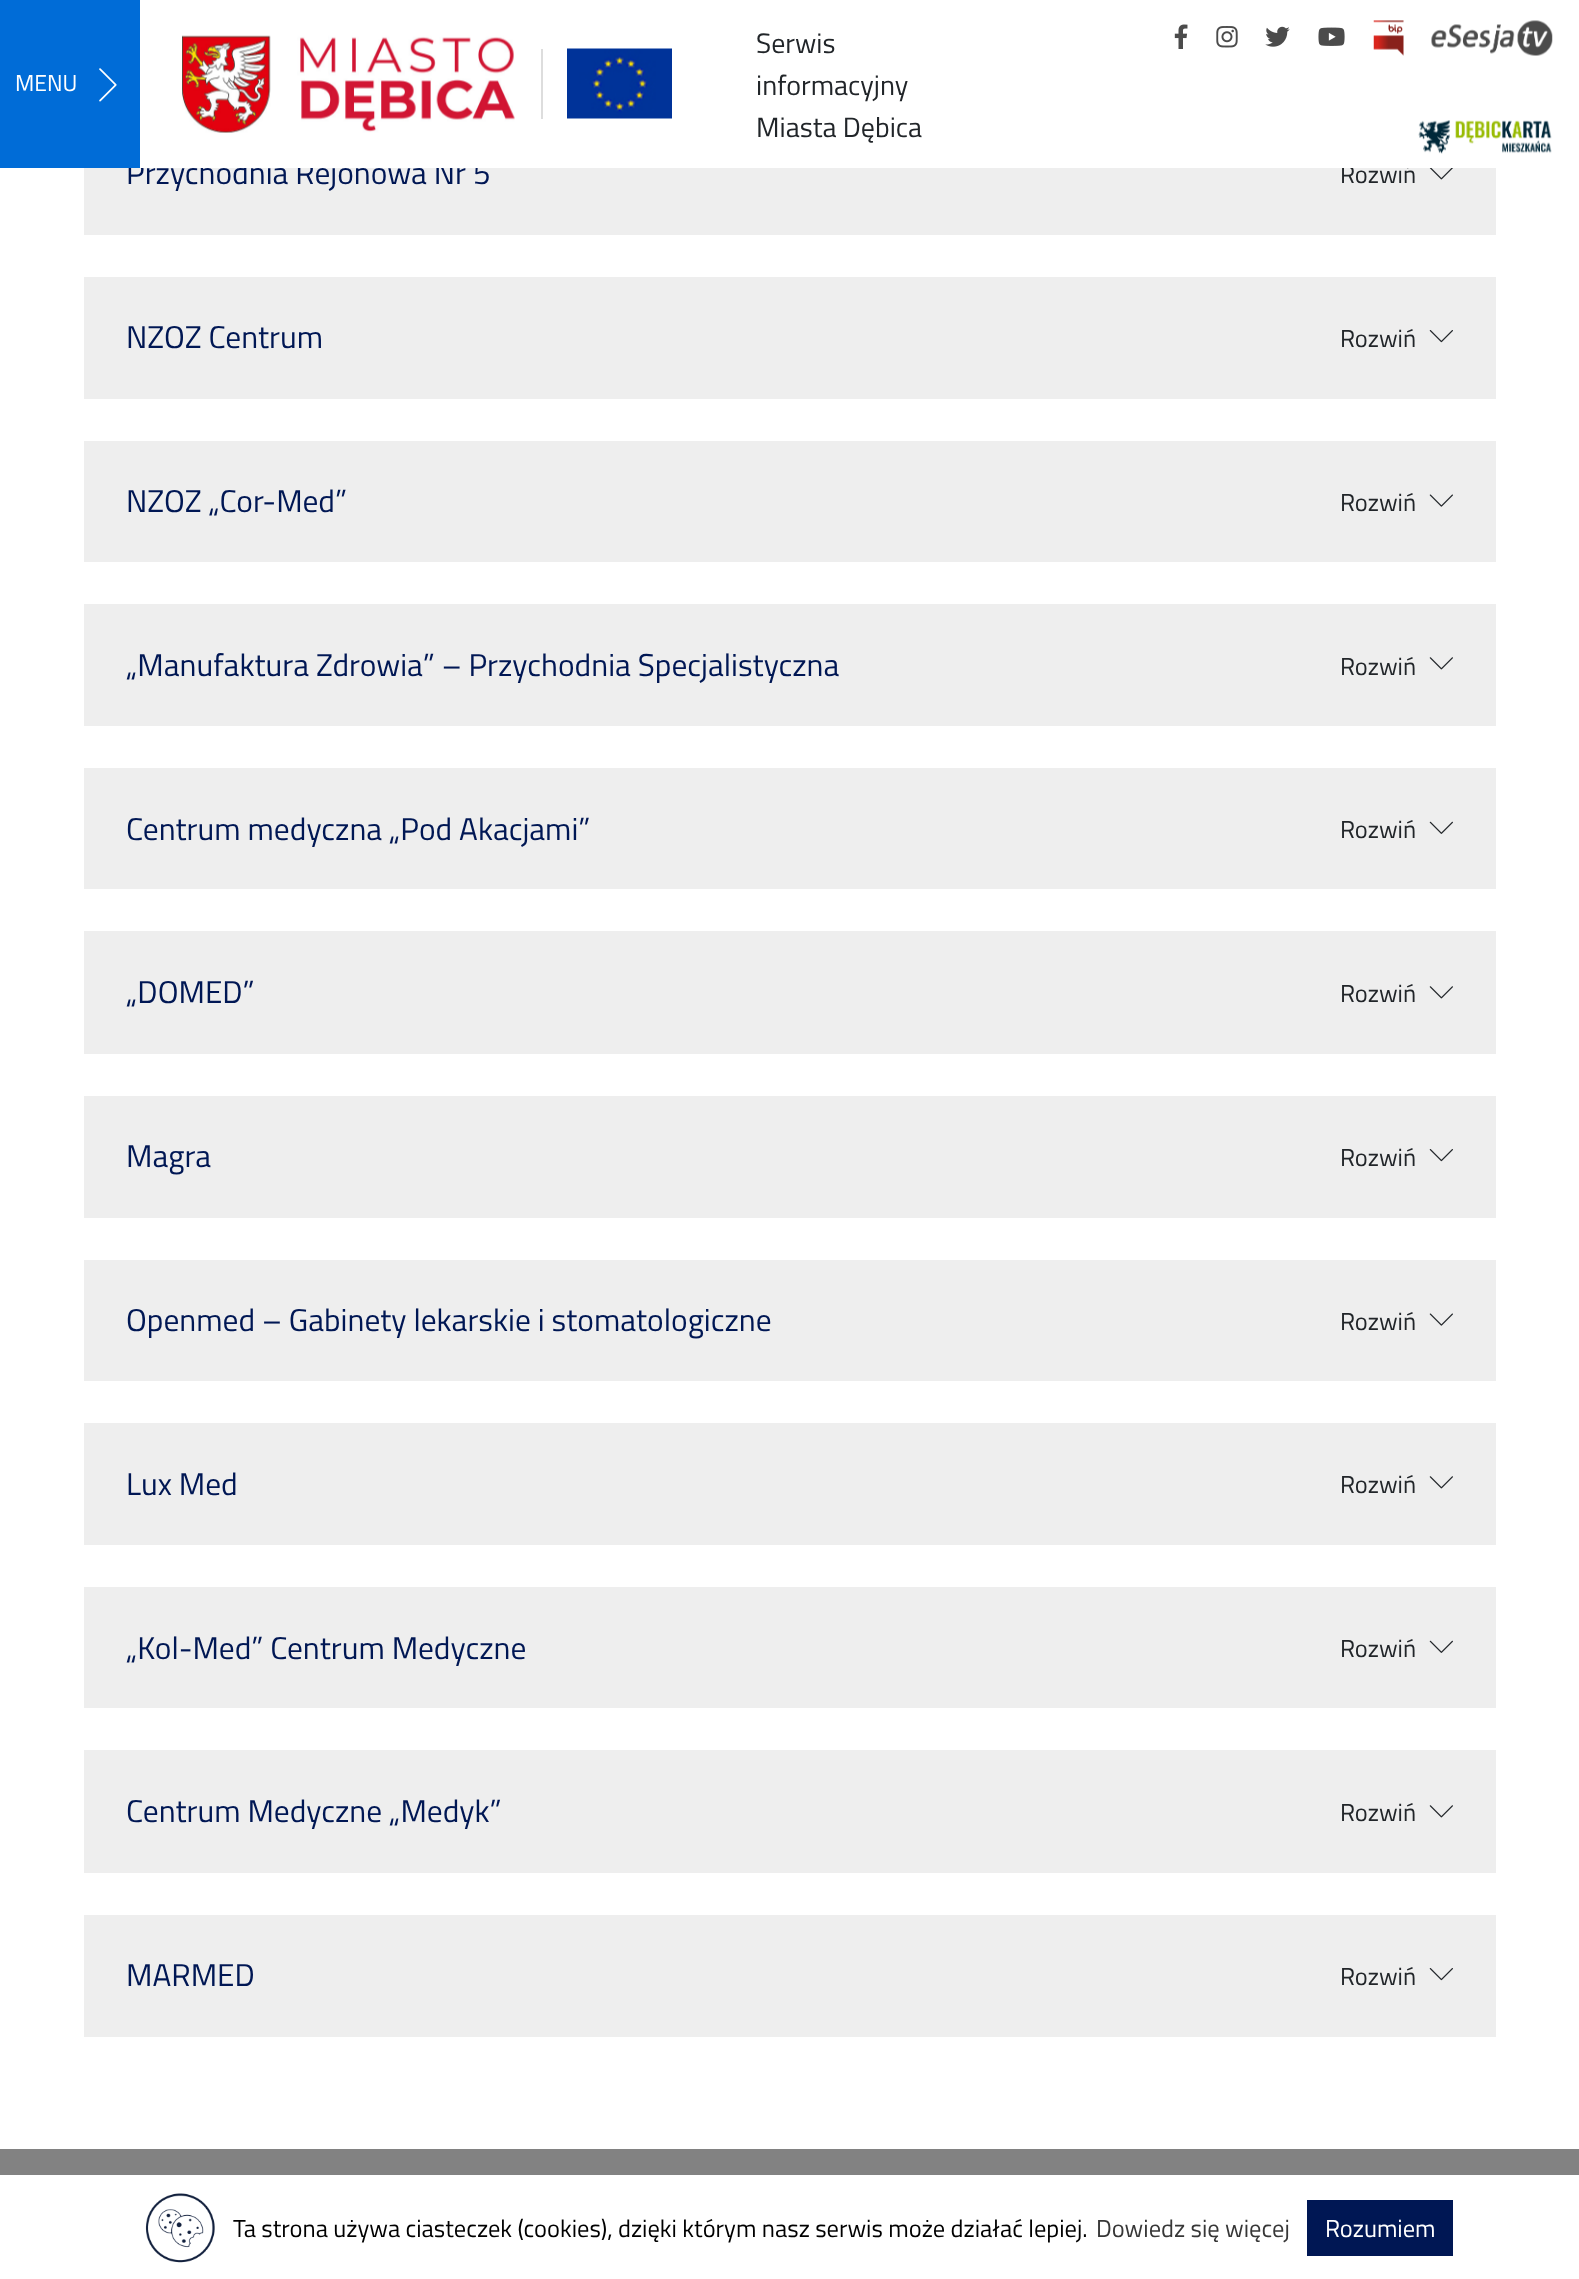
<?xml version="1.0" encoding="UTF-8"?>
<svg xmlns="http://www.w3.org/2000/svg" width="1579" height="2279">
    <rect width="100%" height="100%" fill="#FFFFFF"/>
    <rect x="84" y="168" width="1412" height="67" fill="#EEEEEE"/>
    <text x="126" y="184" font-family="Titillium Web" font-size="31.5" fill="#001754">Przychodnia Rejonowa Nr 5</text>
    <text x="1340" y="183" font-family="Titillium Web" font-size="24.5" fill="#212529">Rozwiń</text>
    <rect x="140" y="161" width="1273" height="7" fill="#FFFFFF"/>
    <rect x="0" y="0" width="140" height="168" fill="#006CD7"/>
    <text x="15" y="91" font-family="Titillium Web" font-size="23" fill="#FFFFFF">MENU</text>
    <image x="99" y="68" width="18" height="34" href="img_01.png"/>
    <image x="182" y="35" width="333" height="98" href="img_02.png"/>
    <rect x="541" y="49" width="2" height="70" fill="#DDDDDD"/>
    <image x="567" y="48" width="105" height="71" href="img_03.png"/>
    <text font-family="Titillium Web" font-size="28" fill="#212529">
        <tspan x="756" y="53">Serwis</tspan>
        <tspan x="756" y="95">informacyjny</tspan>
        <tspan x="756" y="137">Miasta Dębica</tspan>
    </text>
    <image x="1174" y="24" width="14" height="25" href="img_04.png"/>
    <image x="1216" y="26" width="22" height="22" href="img_05.png"/>
    <image x="1265" y="26" width="25" height="21" href="img_06.png"/>
    <image x="1318" y="27" width="27" height="19" href="img_07.png"/>
    <image x="1373" y="20" width="31" height="36" href="img_08.png"/>
    <image x="1431" y="20" width="122" height="36" href="img_09.png"/>
    <image x="1418" y="120" width="134" height="34" href="img_10.png"/>
    <image x="1429" y="168" width="24" height="12" href="img_11.png"/>
    <rect x="84" y="277" width="1412" height="122" fill="#EEEEEE"/>
    <text x="126" y="348" font-family="Titillium Web" font-size="31.5" fill="#001754">NZOZ Centrum</text>
    <text x="1340" y="347" font-family="Titillium Web" font-size="24.5" fill="#212529">Rozwiń</text>
    <image x="1429" y="330" width="24" height="13" href="img_12.png"/>
    <rect x="84" y="441" width="1412" height="121" fill="#EEEEEE"/>
    <text x="126" y="512" font-family="Titillium Web" font-size="31.5" fill="#001754">NZOZ „Cor-Med”</text>
    <text x="1340" y="511" font-family="Titillium Web" font-size="24.5" fill="#212529">Rozwiń</text>
    <image x="1429" y="494" width="24" height="13" href="img_13.png"/>
    <rect x="84" y="604" width="1412" height="122" fill="#EEEEEE"/>
    <text x="126" y="676" font-family="Titillium Web" font-size="31.5" fill="#001754">„Manufaktura Zdrowia” – Przychodnia Specjalistyczna</text>
    <text x="1340" y="675" font-family="Titillium Web" font-size="24.5" fill="#212529">Rozwiń</text>
    <image x="1429" y="657" width="24" height="13" href="img_14.png"/>
    <rect x="84" y="768" width="1412" height="121" fill="#EEEEEE"/>
    <text x="126" y="840" font-family="Titillium Web" font-size="31.5" fill="#001754">Centrum medyczna „Pod Akacjami”</text>
    <text x="1340" y="838" font-family="Titillium Web" font-size="24.5" fill="#212529">Rozwiń</text>
    <image x="1429" y="821" width="24" height="13" href="img_15.png"/>
    <rect x="84" y="931" width="1412" height="123" fill="#EEEEEE"/>
    <text x="126" y="1003" font-family="Titillium Web" font-size="31.5" fill="#001754">„DOMED”</text>
    <text x="1340" y="1002" font-family="Titillium Web" font-size="24.5" fill="#212529">Rozwiń</text>
    <image x="1429" y="986" width="24" height="13" href="img_14.png"/>
    <rect x="84" y="1096" width="1412" height="122" fill="#EEEEEE"/>
    <text x="126" y="1167" font-family="Titillium Web" font-size="31.5" fill="#001754">Magra</text>
    <text x="1340" y="1166" font-family="Titillium Web" font-size="24.5" fill="#212529">Rozwiń</text>
    <image x="1429" y="1149" width="24" height="13" href="img_12.png"/>
    <rect x="84" y="1260" width="1412" height="121" fill="#EEEEEE"/>
    <text x="126" y="1331" font-family="Titillium Web" font-size="31.5" fill="#001754">Openmed – Gabinety lekarskie i stomatologiczne</text>
    <text x="1340" y="1330" font-family="Titillium Web" font-size="24.5" fill="#212529">Rozwiń</text>
    <image x="1429" y="1313" width="24" height="13" href="img_13.png"/>
    <rect x="84" y="1423" width="1412" height="122" fill="#EEEEEE"/>
    <text x="126" y="1495" font-family="Titillium Web" font-size="31.5" fill="#001754">Lux Med</text>
    <text x="1340" y="1493" font-family="Titillium Web" font-size="24.5" fill="#212529">Rozwiń</text>
    <image x="1429" y="1476" width="24" height="13" href="img_14.png"/>
    <rect x="84" y="1587" width="1412" height="121" fill="#EEEEEE"/>
    <text x="126" y="1659" font-family="Titillium Web" font-size="31.5" fill="#001754">„Kol-Med” Centrum Medyczne</text>
    <text x="1340" y="1657" font-family="Titillium Web" font-size="24.5" fill="#212529">Rozwiń</text>
    <image x="1429" y="1640" width="24" height="13" href="img_15.png"/>
    <rect x="84" y="1750" width="1412" height="123" fill="#EEEEEE"/>
    <text x="126" y="1822" font-family="Titillium Web" font-size="31.5" fill="#001754">Centrum Medyczne „Medyk”</text>
    <text x="1340" y="1821" font-family="Titillium Web" font-size="24.5" fill="#212529">Rozwiń</text>
    <image x="1429" y="1805" width="24" height="13" href="img_14.png"/>
    <rect x="84" y="1915" width="1412" height="122" fill="#EEEEEE"/>
    <text x="126" y="1986" font-family="Titillium Web" font-size="31.5" fill="#001754">MARMED</text>
    <text x="1340" y="1985" font-family="Titillium Web" font-size="24.5" fill="#212529">Rozwiń</text>
    <image x="1429" y="1968" width="24" height="13" href="img_12.png"/>
    <rect x="0" y="2149" width="1579" height="26" fill="#828282"/>
    <image x="145" y="2193" width="70" height="70" href="img_16.png"/>
    <text x="233" y="2237" font-family="Titillium Web" font-size="24.5" fill="#000000">Ta strona używa ciasteczek (cookies), dzięki którym nasz serwis może działać lepiej.</text>
    <text x="1096" y="2237" font-family="Titillium Web" font-size="24.5" fill="#373737">Dowiedz się więcej</text>
    <rect x="1307" y="2200" width="146" height="56" fill="#001754"/>
    <text x="1325" y="2237" font-family="Titillium Web" font-size="24.5" fill="#FFFFFF">Rozumiem</text>
</svg>
